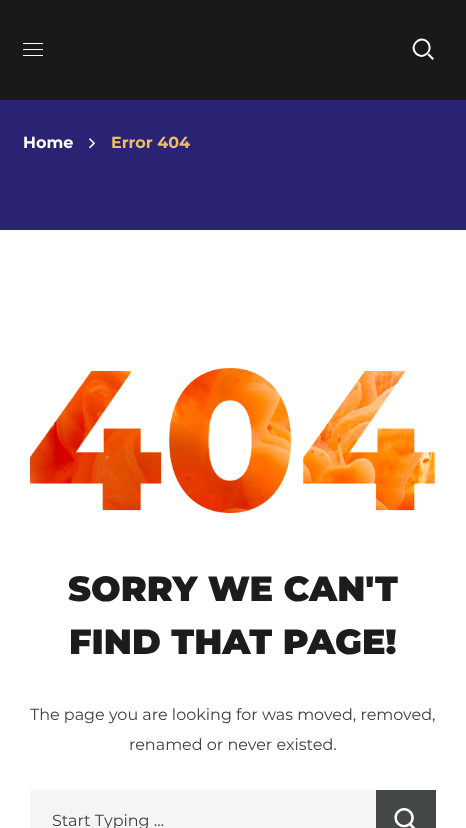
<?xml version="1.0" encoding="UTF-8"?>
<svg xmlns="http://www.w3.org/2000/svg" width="466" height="828">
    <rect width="100%" height="100%" fill="#FFFFFF"/>
    <rect x="0" y="0" width="466" height="100" fill="#1A1919"/>
    <rect x="23" y="43" width="20" height="1" fill="#FFFFFF"/>
    <rect x="23" y="49" width="20" height="1" fill="#FFFFFF"/>
    <rect x="23" y="55" width="20" height="1" fill="#FFFFFF"/>
    <path d="M 427.5 42 C 434.5 49.5 423.5 61 416 53.5 C 408.5 46 420 34.5 427.5 42 Z" fill="none" stroke="#FFFFFF" stroke-width="2"/>
    <path d="M 427.5 55 L 429 53.5 L 434 58.5 L 432.5 60 Z" fill="#FFFFFF"/>
    <rect x="0" y="100" width="466" height="130" fill="#2A2273"/>
    <text x="23" y="148" font-family="Montserrat" font-size="16" font-weight="700" fill="#FFFFFF">Home</text>
    <image x="89" y="138" width="6" height="11" href="img_01.png"/>
    <text x="111" y="148" font-family="Montserrat" font-size="16" font-weight="700" fill="#E8BF64">Error 404</text>
    <image x="30" y="368" width="406" height="145" href="img_02.png"/>
    <text x="68" y="601" font-family="Montserrat" font-size="35" font-weight="900" fill="#1C1C1C">SORRY WE CAN'T</text>
    <text x="69" y="654" font-family="Montserrat" font-size="35" font-weight="900" fill="#1C1C1C">FIND THAT PAGE!</text>
    <text x="30" y="720" font-family="Montserrat" font-size="16" fill="#404040">The page you are looking for was moved, removed,</text>
    <text x="129" y="750" font-family="Montserrat" font-size="16" fill="#404040">renamed or never existed.</text>
    <rect x="30" y="790" width="346" height="38" fill="#F5F5F5"/>
    <text x="52" y="826" font-family="Montserrat" font-size="16" fill="#404040">Start Typing …</text>
    <rect x="376" y="790" width="60" height="38" fill="#434846"/>
    <image x="394" y="808" width="22" height="20" href="img_03.png"/>
</svg>
